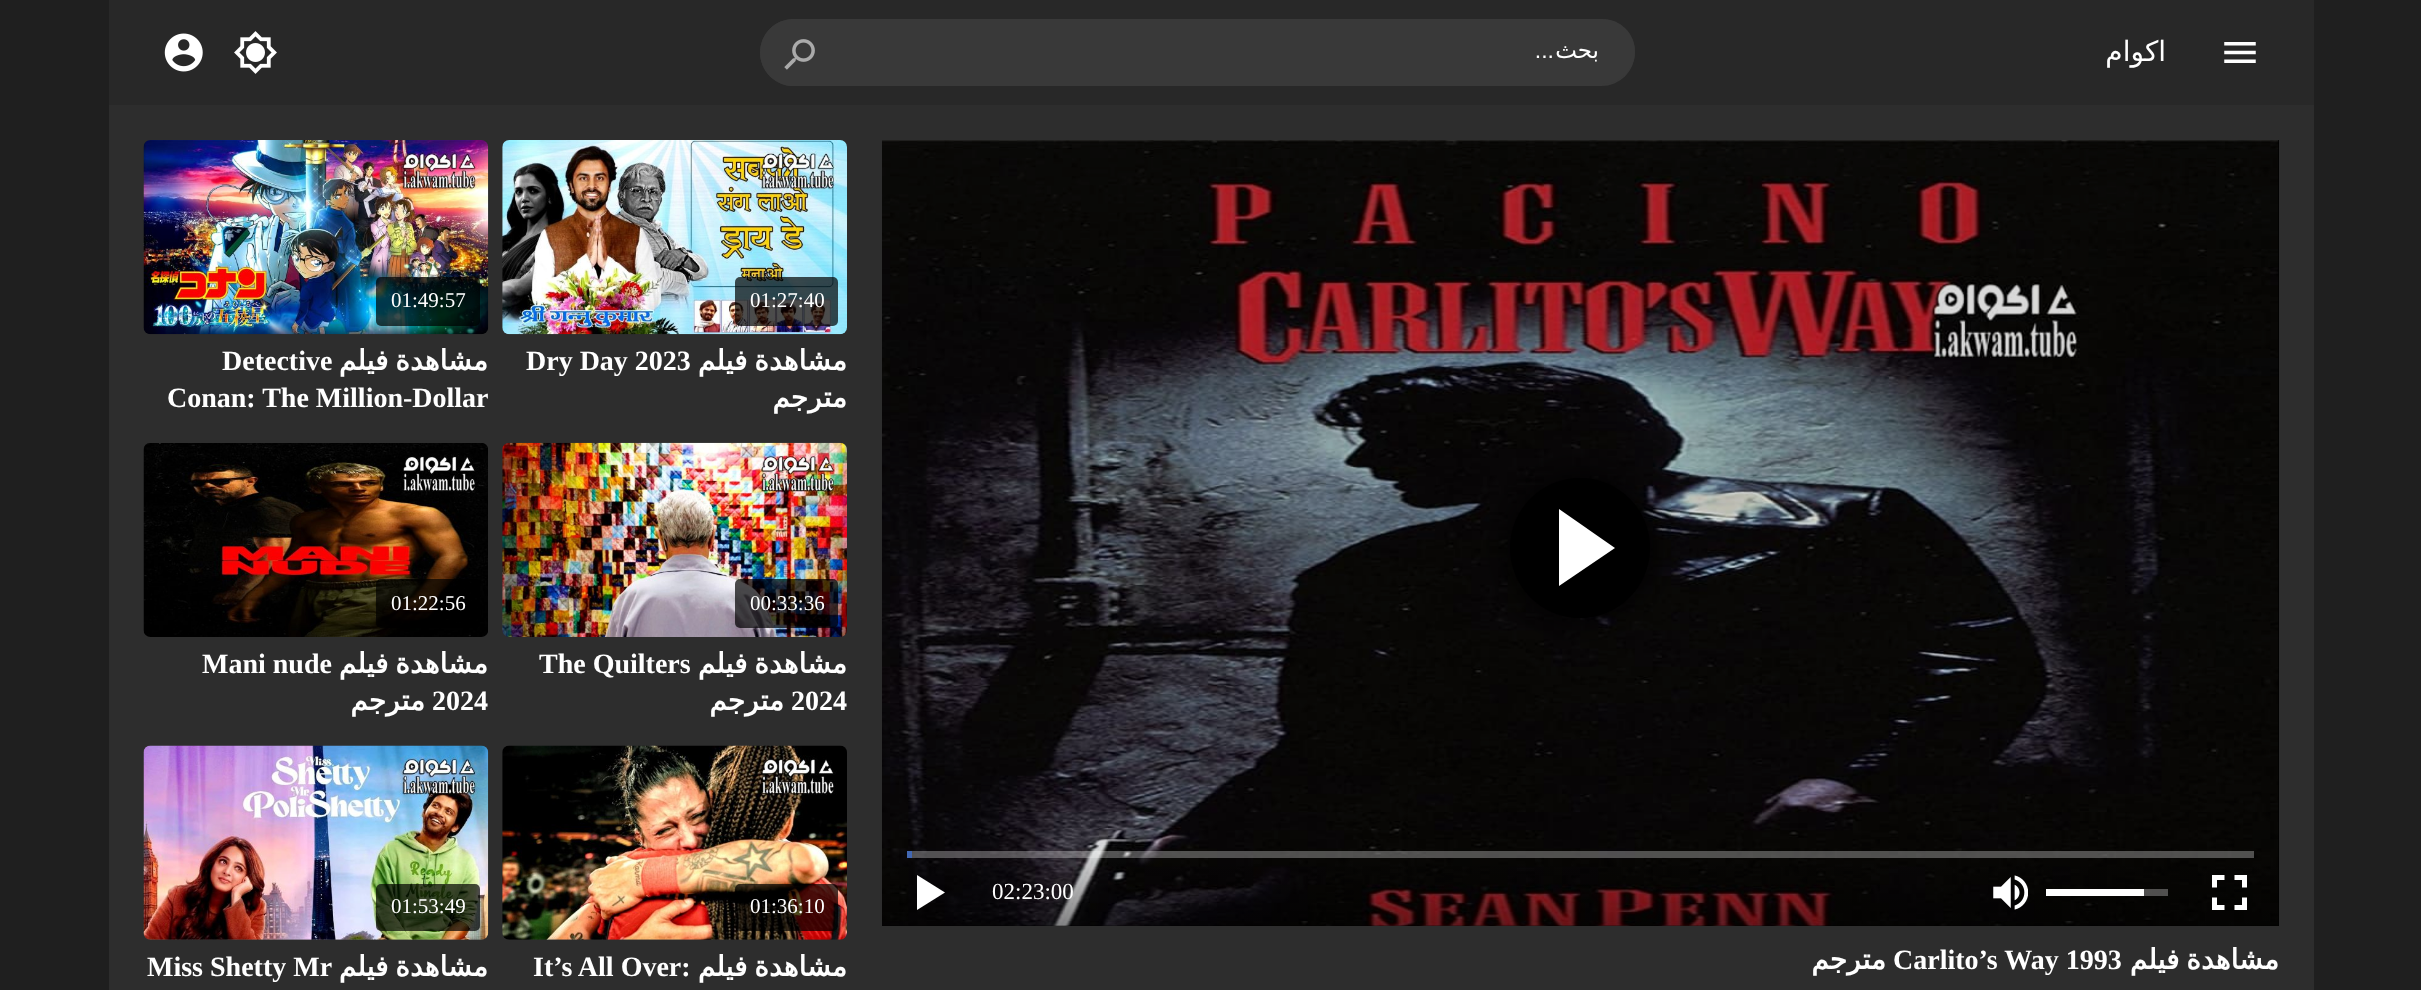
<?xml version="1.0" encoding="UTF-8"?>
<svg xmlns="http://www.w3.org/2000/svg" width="2421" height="990">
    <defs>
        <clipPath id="clip1"><rect x="144" y="345" width="344" height="72"/></clipPath>
        <filter id="blur1" x="-50%" y="-200%" width="200%" height="500%"><feGaussianBlur stdDeviation="17.5"/></filter>
        <linearGradient id="g1" gradientUnits="userSpaceOnUse" x1="1580" y1="850" x2="1580" y2="928"><stop offset="0" stop-color="#000000" stop-opacity="0"/><stop offset="1" stop-color="#000000" stop-opacity="0.4"/></linearGradient>
    </defs>
    <rect width="100%" height="100%" fill="#1F1F1F"/>
    <rect x="109" y="0" width="2205" height="105" fill="#282828"/>
    <image x="164" y="33" width="39" height="39" href="img_01.png"/>
    <image x="234" y="31" width="43" height="43" href="img_02.png"/>
    <rect x="760" y="19" width="875" height="67" rx="33.5" fill="#393939"/>
    <path d="M 793.5 19 H 847 V 86 H 793.5 C 775 86 760 71 760 52.5 C 760 34 775 19 793.5 19 Z" fill="#393939"/>
    <image x="784" y="39" width="31" height="31" href="img_03.png"/>
    <path d="M 847 19 H 1602.5 C 1620.5 19 1635 33.5 1635 51.5 C 1635 69.5 1620.5 84 1602.5 84 H 847 Z" fill="#393939"/>
    <text x="1554" y="58" font-family="Liberation Sans" font-size="23" direction="rtl" fill="#FFFFFF">...</text>
    <text x="1599" y="58" font-family="DejaVu Sans" font-size="23" direction="rtl" fill="#FFFFFF">بحث</text>
    <text x="2166" y="61" font-family="DejaVu Sans" font-size="28" direction="rtl" fill="#FFFFFF">اكوام</text>
    <image x="2224" y="42" width="32" height="21" href="img_04.png"/>
    <rect x="109" y="105" width="2205" height="885" fill="#2D2D2D"/>
    <image x="143" y="140" width="346" height="195" href="img_05.png"/>
    <rect x="376" y="277" width="104" height="49" rx="5" fill="#000000" fill-opacity="0.7"/>
    <text x="391" y="307" font-family="Liberation Serif" font-size="21" fill="#FFFFFF">01:49:57</text>
    <text x="222" y="370" font-family="Liberation Serif" font-size="28" font-weight="700" fill="#FFFFFF">Detective</text>
    <text x="488" y="370" word-spacing="-2" font-family="DejaVu Sans" font-size="28" font-weight="700" direction="rtl" fill="#FFFFFF">مشاهدة فيلم</text>
    <g clip-path="url(#clip1)">
        <text x="167" y="407" font-family="Liberation Serif" font-size="28" font-weight="700" fill="#FFFFFF">Conan: The Million-Dollar</text>
    </g>
    <image x="502" y="140" width="345" height="195" href="img_06.png"/>
    <rect x="735" y="277" width="103" height="49" rx="5" fill="#000000" fill-opacity="0.7"/>
    <text x="750" y="307" font-family="Liberation Serif" font-size="21" fill="#FFFFFF">01:27:40</text>
    <text x="526" y="370" font-family="Liberation Serif" font-size="28" font-weight="700" fill="#FFFFFF">Dry Day 2023</text>
    <text font-family="DejaVu Sans" font-size="28" font-weight="700" direction="rtl" fill="#FFFFFF">
        <tspan x="847" y="370" word-spacing="-2">مشاهدة فيلم</tspan>
        <tspan x="847" y="407">مترجم</tspan>
    </text>
    <image x="143" y="443" width="345" height="194" href="img_07.png"/>
    <rect x="376" y="579" width="104" height="49" rx="5" fill="#000000" fill-opacity="0.7"/>
    <text x="391" y="610" font-family="Liberation Serif" font-size="21" fill="#FFFFFF">01:22:56</text>
    <text x="202" y="673" font-family="Liberation Serif" font-size="28" font-weight="700" fill="#FFFFFF">Mani nude</text>
    <text x="488" y="673" word-spacing="-2" font-family="DejaVu Sans" font-size="28" font-weight="700" direction="rtl" fill="#FFFFFF">مشاهدة فيلم</text>
    <text x="425" y="710" font-family="DejaVu Sans" font-size="28" font-weight="700" direction="rtl" fill="#FFFFFF">مترجم</text>
    <text x="432" y="710" font-family="Liberation Serif" font-size="28" font-weight="700" fill="#FFFFFF">2024</text>
    <image x="502" y="442" width="345" height="195" href="img_08.png"/>
    <rect x="735" y="579" width="103" height="49" rx="5" fill="#000000" fill-opacity="0.7"/>
    <text x="750" y="610" font-family="Liberation Serif" font-size="21" fill="#FFFFFF">00:33:36</text>
    <text x="539" y="673" font-family="Liberation Serif" font-size="28" font-weight="700" fill="#FFFFFF">The Quilters</text>
    <text x="847" y="673" word-spacing="-2" font-family="DejaVu Sans" font-size="28" font-weight="700" direction="rtl" fill="#FFFFFF">مشاهدة فيلم</text>
    <text x="784" y="710" font-family="DejaVu Sans" font-size="28" font-weight="700" direction="rtl" fill="#FFFFFF">مترجم</text>
    <text x="791" y="710" font-family="Liberation Serif" font-size="28" font-weight="700" fill="#FFFFFF">2024</text>
    <image x="143" y="745" width="346" height="195" href="img_09.png"/>
    <rect x="376" y="884" width="104" height="47" rx="5" fill="#000000" fill-opacity="0.7"/>
    <text x="391" y="913" font-family="Liberation Serif" font-size="21" fill="#FFFFFF">01:53:49</text>
    <text x="147" y="976" font-family="Liberation Serif" font-size="28" font-weight="700" fill="#FFFFFF">Miss Shetty Mr</text>
    <text x="488" y="976" word-spacing="-2" font-family="DejaVu Sans" font-size="28" font-weight="700" direction="rtl" fill="#FFFFFF">مشاهدة فيلم</text>
    <image x="502" y="745" width="345" height="195" href="img_10.png"/>
    <rect x="735" y="884" width="103" height="47" rx="5" fill="#000000" fill-opacity="0.7"/>
    <text x="750" y="913" font-family="Liberation Serif" font-size="21" fill="#FFFFFF">01:36:10</text>
    <text x="533" y="976" font-family="Liberation Serif" font-size="28" font-weight="700" fill="#FFFFFF">It’s All Over:</text>
    <text x="847" y="976" word-spacing="-2" font-family="DejaVu Sans" font-size="28" font-weight="700" direction="rtl" fill="#FFFFFF">مشاهدة فيلم</text>
    <rect x="882" y="140" width="1397" height="786" fill="#000000"/>
    <image x="882" y="140" width="1397" height="786" href="img_11.png"/>
    <rect x="1510" y="478" width="140" height="140" rx="70" fill="#000000" filter="url(#blur1)"/>
    <circle cx="1580" cy="548" r="70" fill="#000000"/>
    <path d="M 1559 586 V 509 L 1615 548 Z" fill="#FFFFFF"/>
    <rect x="882" y="854" width="1396" height="72" fill="url(#g1)"/>
    <rect x="907" y="851" width="1347" height="7" fill="#FFFFFF" fill-opacity="0.3"/>
    <rect x="907" y="851" width="5" height="7" fill="#4267B2"/>
    <path d="M 917 875 V 910 L 945 892.5 Z" fill="#FFFFFF"/>
    <text x="992" y="899" font-family="Liberation Serif" font-size="23" fill="#FFFFFF">02:23:00</text>
    <image x="1993" y="875" width="35" height="35" href="img_12.png"/>
    <rect x="2144" y="889" width="24" height="7" fill="#FFFFFF" fill-opacity="0.3"/>
    <rect x="2046" y="889" width="98" height="7" fill="#FFFFFF"/>
    <image x="2212" y="875" width="35" height="35" href="img_13.png"/>
    <text x="1886" y="969" font-family="DejaVu Sans" font-size="28" font-weight="700" direction="rtl" fill="#FFFFFF">مترجم</text>
    <text x="1893" y="969" font-family="Liberation Serif" font-size="28" font-weight="700" fill="#FFFFFF">Carlito’s Way 1993</text>
    <text x="2279" y="969" word-spacing="-2" font-family="DejaVu Sans" font-size="28" font-weight="700" direction="rtl" fill="#FFFFFF">مشاهدة فيلم</text>
</svg>
